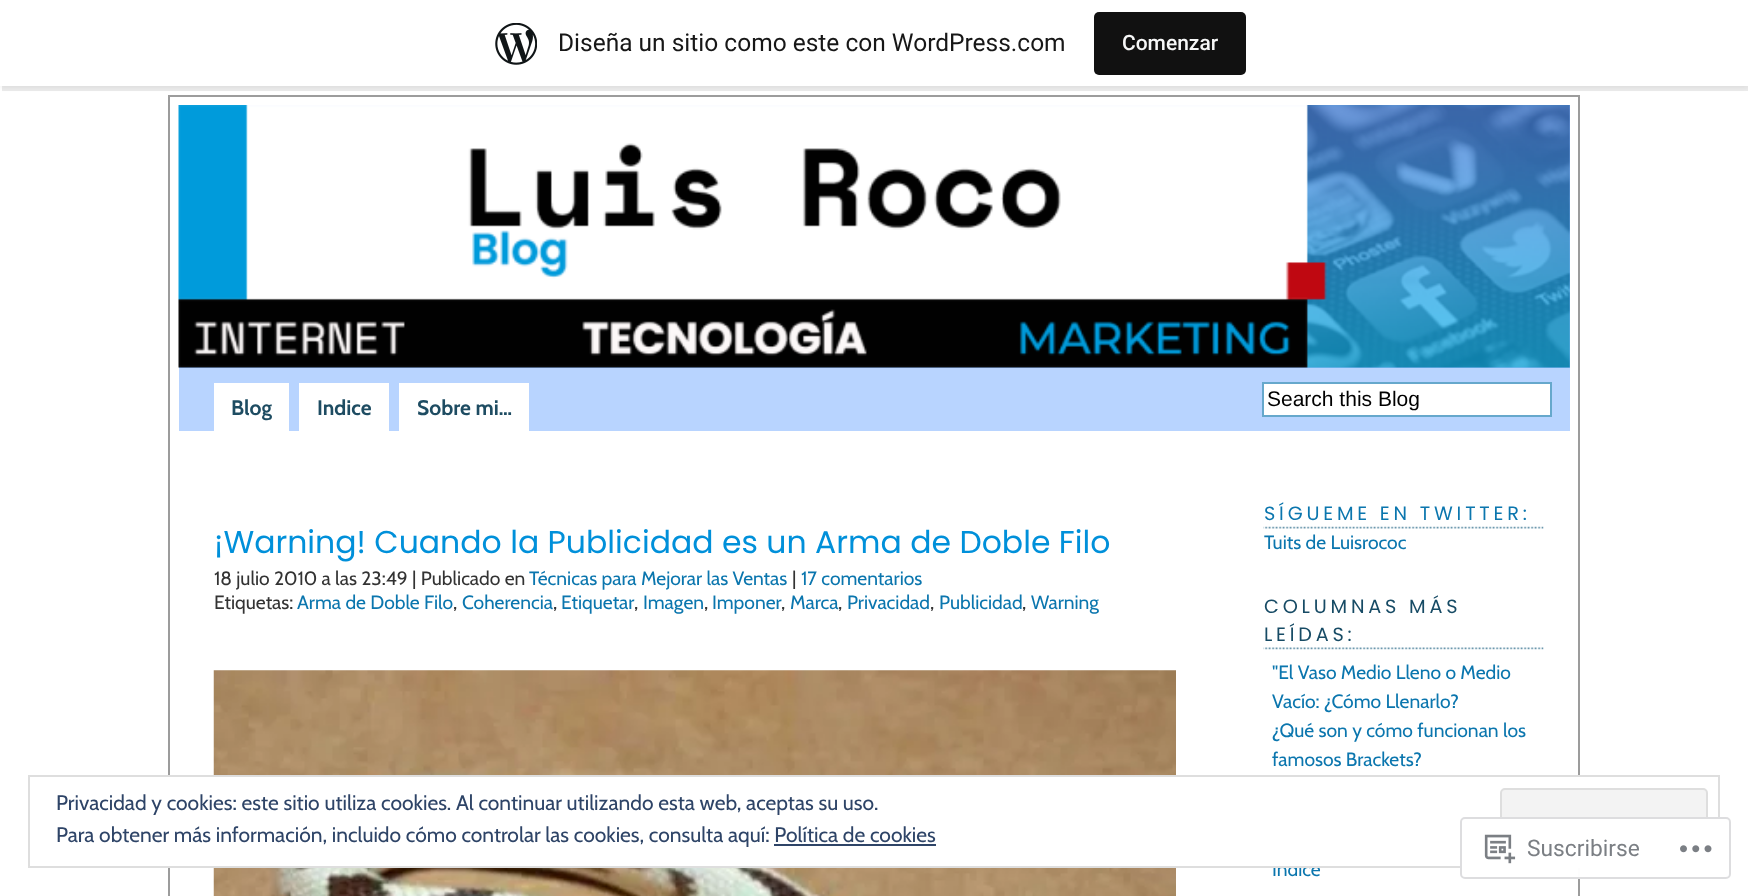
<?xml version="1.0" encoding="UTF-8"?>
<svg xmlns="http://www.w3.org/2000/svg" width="1748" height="896">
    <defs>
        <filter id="blur1" x="-50%" y="-200%" width="200%" height="500%"><feGaussianBlur stdDeviation="2"/></filter>
    </defs>
    <rect width="100%" height="100%" fill="#FFFFFF"/>
    <rect x="0" y="2" width="1748" height="86" fill="#000000" fill-opacity="0.05" filter="url(#blur1)"/>
    <path d="M 2 86 V 91 H 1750 V 5 H 1748 V 86 Z" fill="#000000" fill-opacity="0.08"/>
    <rect x="0" y="0" width="1748" height="86" fill="#FFFFFF"/>
    <image x="495" y="23" width="42" height="42" href="img_01.png"/>
    <text x="558" y="51" font-family="Roboto" font-size="24.5" fill="#171717">Diseña un sitio como este con WordPress.com</text>
    <rect x="1094" y="12" width="152" height="63" rx="5" fill="#111111"/>
    <text x="1122" y="50" font-family="Roboto" font-size="21" font-weight="500" fill="#F6F7F7">Comenzar</text>
    <rect x="169" y="96" width="1410" height="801" fill="none" stroke="#9C9C9C" stroke-width="2"/>
    <rect x="179" y="105" width="1391" height="263" fill="#8EBAFD"/>
    <image x="178" y="105" width="1392" height="263" href="img_02.png"/>
    <rect x="179" y="368" width="1391" height="63" fill="#B8D4FF"/>
    <rect x="214" y="383" width="75" height="48" fill="#FFFFFF"/>
    <text x="231" y="415" font-family="Cabin" font-size="21" font-weight="700" fill="#1E4C62">Blog</text>
    <rect x="299" y="383" width="90" height="48" fill="#FFFFFF"/>
    <text x="317" y="415" font-family="Cabin" font-size="21" font-weight="700" fill="#1E4C62">Indice</text>
    <rect x="399" y="383" width="130" height="48" fill="#FFFFFF"/>
    <text x="417" y="415" font-family="Cabin" font-size="21" font-weight="700" fill="#1E4C62">Sobre mi…</text>
    <rect x="1263" y="383" width="288" height="33" fill="#FFFFFF" stroke="#66A8CC" stroke-width="2"/>
    <text x="1267" y="406" font-family="Liberation Sans" font-size="21" fill="#000000">Search this Blog</text>
    <text x="214" y="553" font-family="Poppins" font-size="31.5" fill="#0090DA">¡Warning! Cuando la Publicidad es un Arma de Doble Filo</text>
    <text x="214" y="585" font-family="Cabin" font-size="19.25" fill="#333333">18 julio 2010 a las 23:49 | Publicado en</text>
    <text x="529" y="585" font-family="Cabin" font-size="19.25" fill="#0B76AE">Técnicas para Mejorar las Ventas</text>
    <text x="792" y="585" font-family="Cabin" font-size="19.25" fill="#333333">|</text>
    <text x="801" y="585" font-family="Cabin" font-size="19.25" fill="#0B76AE">17 comentarios</text>
    <text x="214" y="609" font-family="Cabin" font-size="19.25" fill="#333333">Etiquetas:</text>
    <text x="297" y="609" font-family="Cabin" font-size="19.25" fill="#0B76AE">Arma de Doble Filo</text>
    <text x="453" y="609" font-family="Cabin" font-size="19.25" fill="#333333">,</text>
    <text x="462" y="609" font-family="Cabin" font-size="19.25" fill="#0B76AE">Coherencia</text>
    <text x="553" y="609" font-family="Cabin" font-size="19.25" fill="#333333">,</text>
    <text x="561" y="609" font-family="Cabin" font-size="19.25" fill="#0B76AE">Etiquetar</text>
    <text x="634" y="609" font-family="Cabin" font-size="19.25" fill="#333333">,</text>
    <text x="643" y="609" font-family="Cabin" font-size="19.25" fill="#0B76AE">Imagen</text>
    <text x="704" y="609" font-family="Cabin" font-size="19.25" fill="#333333">,</text>
    <text x="712" y="609" font-family="Cabin" font-size="19.25" fill="#0B76AE">Imponer</text>
    <text x="781" y="609" font-family="Cabin" font-size="19.25" fill="#333333">,</text>
    <text x="790" y="609" font-family="Cabin" font-size="19.25" fill="#0B76AE">Marca</text>
    <text x="838" y="609" font-family="Cabin" font-size="19.25" fill="#333333">,</text>
    <text x="847" y="609" font-family="Cabin" font-size="19.25" fill="#0B76AE">Privacidad</text>
    <text x="930" y="609" font-family="Cabin" font-size="19.25" fill="#333333">,</text>
    <text x="939" y="609" font-family="Cabin" font-size="19.25" fill="#0B76AE">Publicidad</text>
    <text x="1022" y="609" font-family="Cabin" font-size="19.25" fill="#333333">,</text>
    <text x="1031" y="609" font-family="Cabin" font-size="19.25" fill="#0B76AE">Warning</text>
    <image x="213" y="670" width="963" height="226" href="img_03.png"/>
    <image x="1263" y="526" width="281" height="3" href="img_04.png"/>
    <text x="1264" y="520" font-family="Poppins" font-size="19.25" letter-spacing="3.8" fill="#0B76AE">SÍGUEME EN TWITTER:</text>
    <text x="1264" y="549" font-family="Cabin" font-size="19.25" fill="#0B76AE">Tuits de Luisrococ</text>
    <image x="1263" y="647" width="281" height="3" href="img_05.png"/>
    <text font-family="Poppins" font-size="19.25" letter-spacing="3.8" fill="#174B65">
        <tspan x="1264" y="613">COLUMNAS MÁS</tspan>
        <tspan x="1264" y="641">LEÍDAS:</tspan>
    </text>
    <text font-family="Cabin" font-size="19.25" fill="#0B76AE">
        <tspan x="1272" y="679">"El Vaso Medio Lleno o Medio</tspan>
        <tspan x="1272" y="708">Vacío: ¿Cómo Llenarlo?</tspan>
        <tspan x="1272" y="737">¿Qué son y cómo funcionan los</tspan>
        <tspan x="1272" y="766">famosos Brackets?</tspan>
    </text>
    <text x="1272" y="876" font-family="Cabin" font-size="19.25" fill="#0B76AE">Indice</text>
    <rect x="168" y="777" width="1412" height="89" fill="#FFFFFF"/>
    <rect x="29" y="776" width="1690" height="91" fill="none" stroke="#DEDEDE" stroke-width="2"/>
    <text x="56" y="810" font-family="Cabin" font-size="21" fill="#2E4467">Privacidad y cookies: este sitio utiliza cookies. Al continuar utilizando esta web, aceptas su uso.</text>
    <rect x="1501" y="789" width="206" height="66" rx="4" fill="#F3F3F3" stroke="#DEDEDE" stroke-width="2"/>
    <text x="56" y="842" font-family="Cabin" font-size="21" fill="#2E4467">Para obtener más información, incluido cómo controlar las cookies, consulta aquí: Política de cookies</text>
    <rect x="774" y="844" width="162" height="2" fill="#2E4467"/>
    <rect x="1460" y="817" width="271" height="62" rx="5" fill="#FFFFFF" fill-opacity="0.98"/>
    <rect x="1461" y="818" width="269" height="60" rx="4" fill="none" stroke="#DCDCDE" stroke-opacity="0.98" stroke-width="2"/>
    <image x="1484" y="834" width="32" height="30" href="img_06.png"/>
    <text x="1527" y="856" font-family="Roboto" font-size="22.75" fill="#7B7F84">Suscribirse</text>
    <image x="1680" y="845" width="32" height="8" href="img_07.png"/>
</svg>
